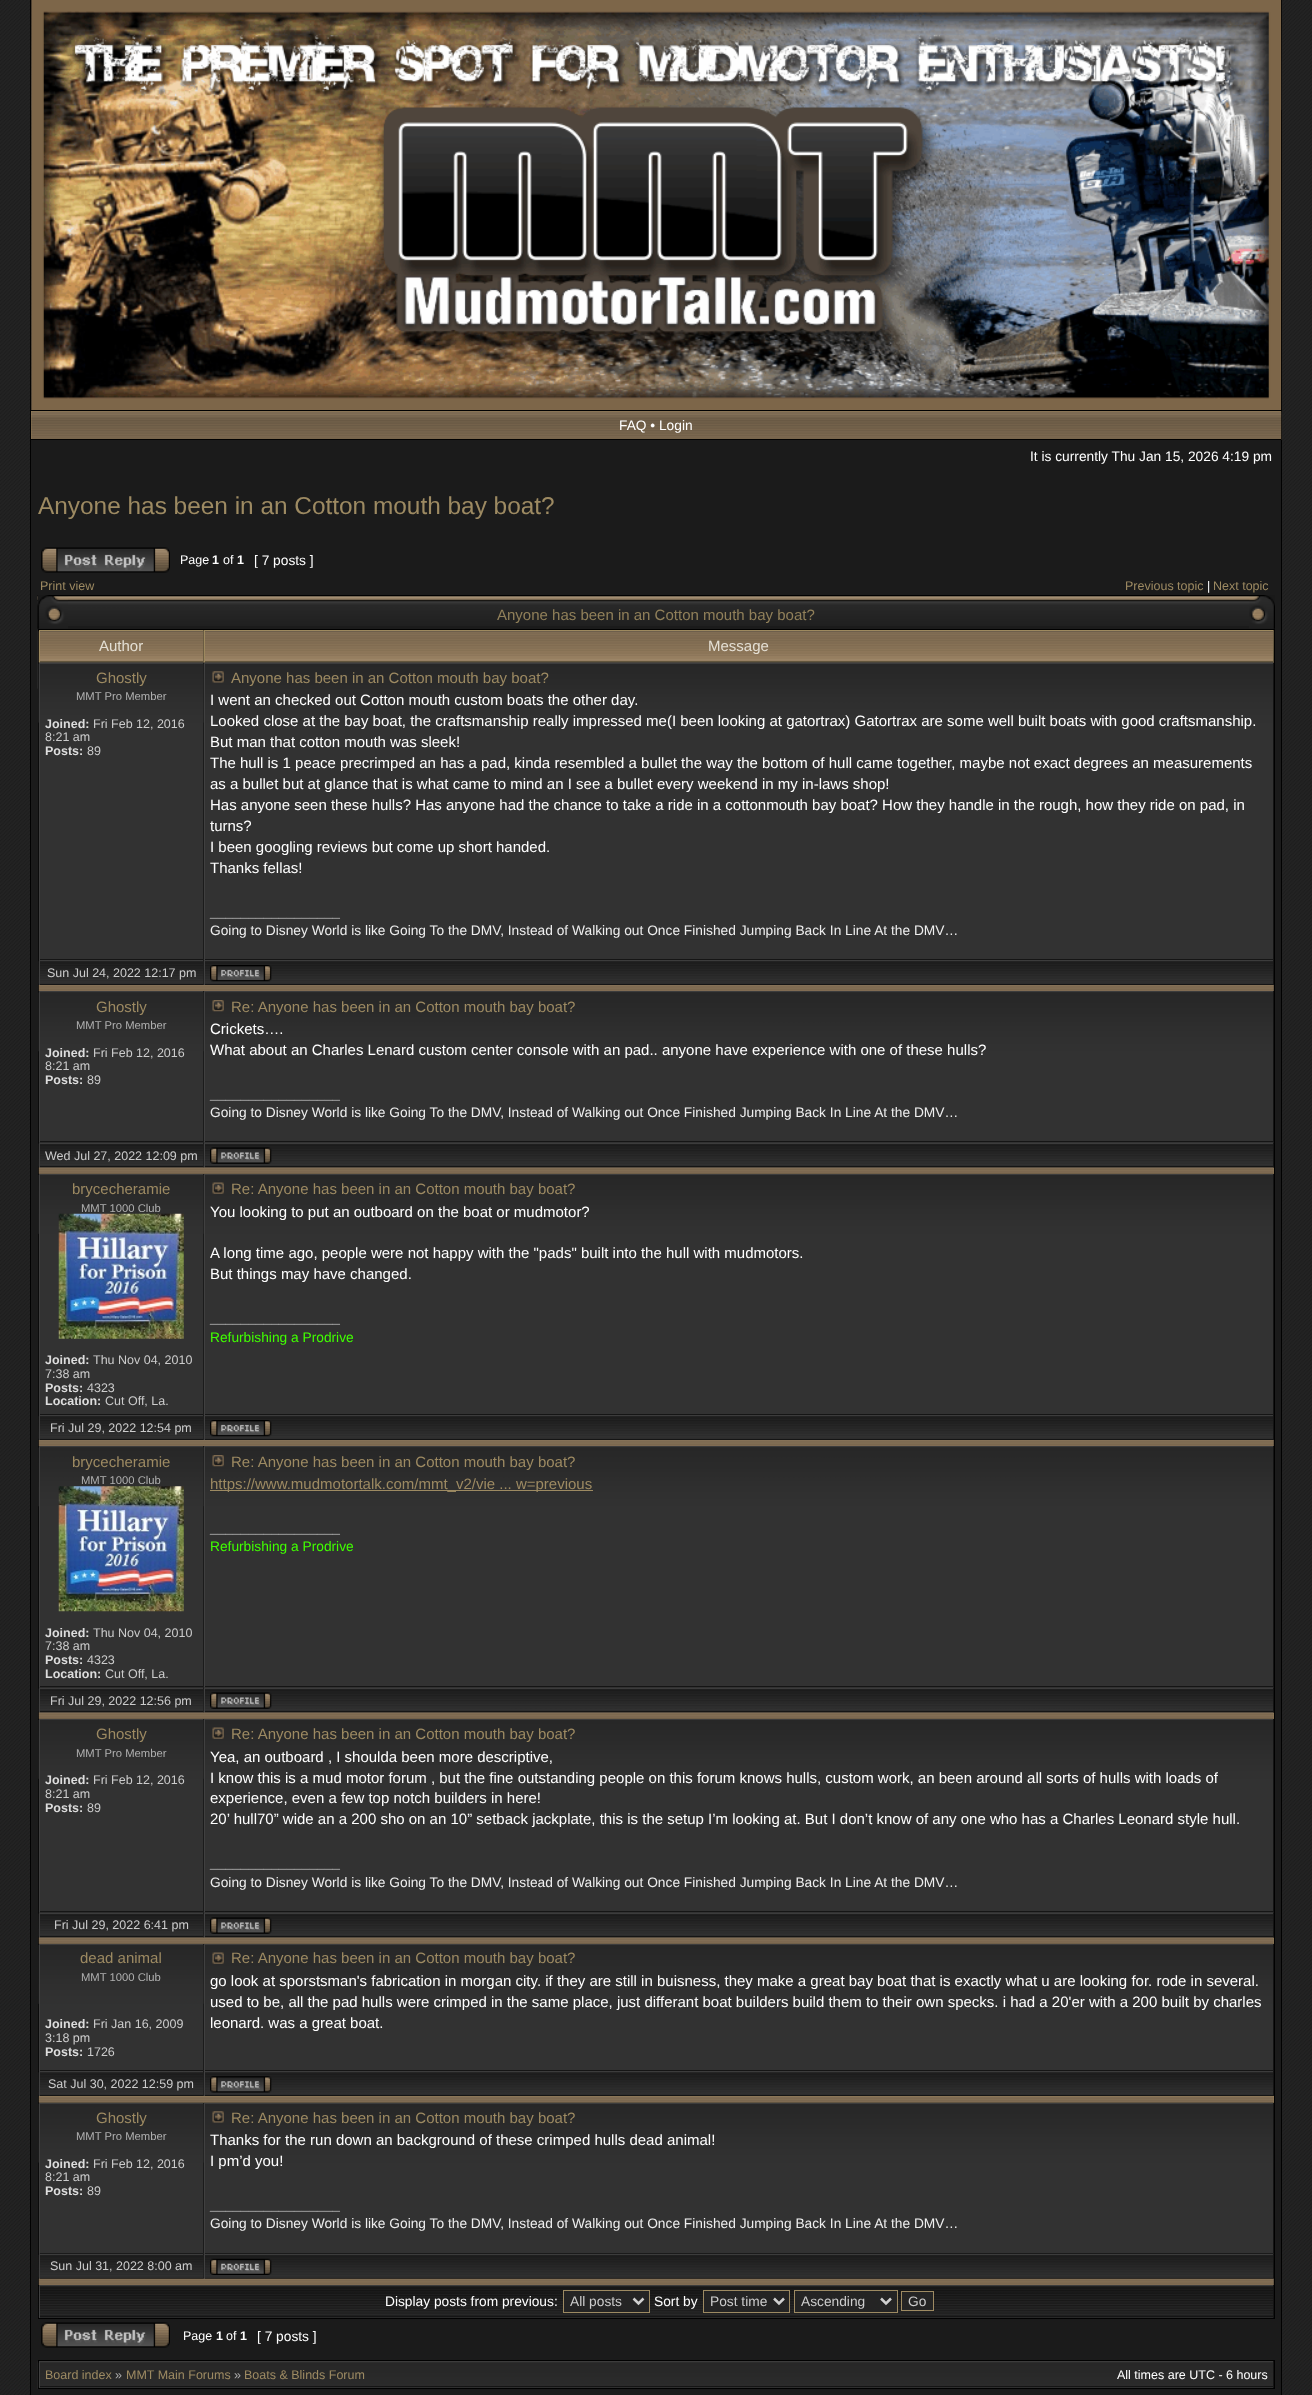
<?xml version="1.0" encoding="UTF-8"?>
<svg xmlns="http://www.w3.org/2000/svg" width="1312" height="2395">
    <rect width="100%" height="100%" fill="#FFFFFF"/>
    <image x="0" y="0" width="1312" height="2395" href="img_01.png"/>
    <rect x="1281" y="0" width="1" height="2395" fill="#010101"/>
    <rect x="30" y="0" width="1" height="2395" fill="#010101"/>
    <image x="31" y="0" width="1251" height="110" href="img_02.png"/>
    <image x="31" y="0" width="1251" height="410" href="img_03.png"/>
    <rect x="31" y="411" width="1250" height="28" fill="#A28A55"/>
    <image x="31" y="411" width="1251" height="29" href="img_04.png"/>
    <rect x="31" y="410" width="1250" height="1" fill="#010101"/>
    <rect x="31" y="439" width="1250" height="1" fill="#010101"/>
    <text x="619" y="430" font-family="Liberation Sans" font-size="13.75" fill="#FFFFFF">FAQ • Login</text>
    <rect x="31" y="440" width="1250" height="1955" fill="#1B1B1B"/>
    <text x="1030" y="461" font-family="Liberation Sans" font-size="13.75" fill="#FFFFFF">It is currently Thu Jan 15, 2026 4:19 pm</text>
    <text x="38" y="514" font-family="Liberation Sans" font-size="24.4" fill="#9D8A62">Anyone has been in an Cotton mouth bay boat?</text>
    <image x="41" y="547" width="129" height="26" href="img_05.png"/>
    <text x="180" y="564" font-family="Liberation Sans" font-size="12.5" fill="#FFFFFF">Page</text>
    <text x="212" y="564" font-family="Liberation Sans" font-size="12.5" font-weight="700" fill="#FFFFFF">1</text>
    <text x="223" y="564" font-family="Liberation Sans" font-size="12.5" fill="#FFFFFF">of</text>
    <text x="237" y="564" font-family="Liberation Sans" font-size="12.5" font-weight="700" fill="#FFFFFF">1</text>
    <text x="254" y="565" font-family="Liberation Sans" font-size="13.75" fill="#FFFFFF">[ 7 posts ]</text>
    <text x="40" y="590" font-family="Liberation Sans" font-size="12.5" fill="#9D8A62">Print view</text>
    <text x="1125" y="590" font-family="Liberation Sans" font-size="12.5" fill="#9D8A62">Previous topic</text>
    <text x="1207" y="590" font-family="Liberation Sans" font-size="12.5" fill="#FFFFFF">|</text>
    <text x="1213" y="590" font-family="Liberation Sans" font-size="12.5" fill="#9D8A62">Next topic</text>
    <image x="37" y="595" width="1212" height="31" href="img_06.png"/>
    <image x="37" y="595" width="31" height="34" href="img_07.png"/>
    <image x="1249" y="595" width="26" height="34" href="img_08.png"/>
    <text x="497" y="620" font-family="Liberation Sans" font-size="15" fill="#91805A">Anyone has been in an Cotton mouth bay boat?</text>
    <image x="37" y="630" width="1236" height="59" href="img_09.png"/>
    <rect x="38.5" y="629.5" width="1236" height="1689" fill="none" stroke="#010101"/>
    <image x="38" y="631" width="165" height="32" href="img_10.png"/>
    <rect x="39" y="630" width="1235" height="1" fill="#9D895F"/>
    <rect x="203" y="630" width="1" height="33" fill="#62563D"/>
    <rect x="39" y="661" width="165" height="1" fill="#62563D"/>
    <rect x="39" y="630" width="1" height="33" fill="#9D895F"/>
    <text x="99" y="651" font-family="Liberation Sans" font-size="15" fill="#E4DFD4">Author</text>
    <image x="203" y="631" width="1070" height="32" href="img_11.png"/>
    <rect x="1273" y="630" width="1" height="33" fill="#62563D"/>
    <rect x="204" y="661" width="1070" height="1" fill="#62563D"/>
    <rect x="204" y="630" width="1" height="33" fill="#9D895F"/>
    <text x="708" y="651" font-family="Liberation Sans" font-size="15" fill="#E4DFD4">Message</text>
    <image x="38" y="662" width="166" height="298" href="img_12.png"/>
    <rect x="39" y="663" width="165" height="1" fill="#3C3C3C"/>
    <rect x="203" y="663" width="1" height="297" fill="#141414"/>
    <rect x="39" y="959" width="165" height="1" fill="#151515"/>
    <rect x="39" y="663" width="1" height="297" fill="#404040"/>
    <text x="96" y="683" font-family="Liberation Sans" font-size="15" fill="#9D8A62">Ghostly</text>
    <text x="76" y="700" font-family="Liberation Sans" font-size="11.25" fill="#B0B0B0">MMT Pro Member</text>
    <text x="45" y="728" font-family="Liberation Sans" font-size="12.5" font-weight="700" fill="#DDDDDD">Joined:</text>
    <text x="93" y="728" font-family="Liberation Sans" font-size="12.5" fill="#CCCCCC">Fri Feb 12, 2016</text>
    <text x="45" y="741" font-family="Liberation Sans" font-size="12.5" fill="#CCCCCC">8:21 am</text>
    <text x="45" y="755" font-family="Liberation Sans" font-size="12.5" font-weight="700" fill="#DDDDDD">Posts:</text>
    <text x="87" y="755" font-family="Liberation Sans" font-size="12.5" fill="#CCCCCC">89</text>
    <image x="203" y="662" width="1071" height="298" href="img_13.png"/>
    <rect x="204" y="663" width="1070" height="1" fill="#3C3C3C"/>
    <rect x="1273" y="663" width="1" height="297" fill="#141414"/>
    <rect x="204" y="959" width="1070" height="1" fill="#151515"/>
    <rect x="204" y="663" width="1" height="297" fill="#404040"/>
    <image x="212" y="671" width="12" height="12" href="img_14.png"/>
    <text x="231" y="683" font-family="Liberation Sans" font-size="15" fill="#9D8A62">Anyone has been in an Cotton mouth bay boat?</text>
    <text font-family="Liberation Sans" font-size="15" fill="#FFFFFF">
        <tspan x="210" y="705">I went an checked out Cotton mouth custom boats the other day.</tspan>
        <tspan x="210" y="726">Looked close at the bay boat, the craftsmanship really impressed me(I been looking at gatortrax) Gatortrax are some well built boats with good craftsmanship.</tspan>
        <tspan x="210" y="747">But man that cotton mouth was sleek!</tspan>
        <tspan x="210" y="768">The hull is 1 peace precrimped an has a pad, kinda resembled a bullet the way the bottom of hull came together, maybe not exact degrees an measurements</tspan>
        <tspan x="210" y="789">as a bullet but at glance that is what came to mind an I see a bullet every weekend in my in-laws shop!</tspan>
        <tspan x="210" y="810">Has anyone seen these hulls? Has anyone had the chance to take a ride in a cottonmouth bay boat? How they handle in the rough, how they ride on pad, in</tspan>
        <tspan x="210" y="831">turns?</tspan>
        <tspan x="210" y="852">I been googling reviews but come up short handed.</tspan>
        <tspan x="210" y="873">Thanks fellas!</tspan>
    </text>
    <text x="210" y="916" font-family="Liberation Sans" font-size="13.75" fill="#AAAAAA">_________________</text>
    <text x="210" y="935" font-family="Liberation Sans" font-size="13.75" fill="#EEEEEE">Going to Disney World is like Going To the DMV, Instead of Walking out Once Finished Jumping Back In Line At the DMV…</text>
    <image x="38" y="960" width="165" height="25" href="img_15.png"/>
    <rect x="39" y="960" width="165" height="1" fill="#3C3C3C"/>
    <rect x="203" y="960" width="1" height="25" fill="#141414"/>
    <rect x="39" y="984" width="165" height="1" fill="#151515"/>
    <rect x="39" y="960" width="1" height="25" fill="#404040"/>
    <text x="47" y="977" font-family="Liberation Sans" font-size="12.5" fill="#CCCCCC">Sun Jul 24, 2022 12:17 pm</text>
    <image x="203" y="960" width="1070" height="25" href="img_16.png"/>
    <rect x="204" y="960" width="1070" height="1" fill="#3C3C3C"/>
    <rect x="1273" y="960" width="1" height="25" fill="#141414"/>
    <rect x="204" y="984" width="1070" height="1" fill="#151515"/>
    <rect x="204" y="960" width="1" height="25" fill="#404040"/>
    <image x="210" y="965" width="62" height="17" href="img_17.png"/>
    <image x="38" y="985" width="1236" height="7" href="img_18.png"/>
    <image x="38" y="991" width="165" height="152" href="img_19.png"/>
    <rect x="39" y="991" width="165" height="1" fill="#3C3C3C"/>
    <rect x="203" y="991" width="1" height="152" fill="#141414"/>
    <rect x="39" y="1141" width="165" height="1" fill="#151515"/>
    <rect x="39" y="991" width="1" height="152" fill="#404040"/>
    <text x="96" y="1012" font-family="Liberation Sans" font-size="15" fill="#9D8A62">Ghostly</text>
    <text x="76" y="1029" font-family="Liberation Sans" font-size="11.25" fill="#B0B0B0">MMT Pro Member</text>
    <text x="45" y="1057" font-family="Liberation Sans" font-size="12.5" font-weight="700" fill="#DDDDDD">Joined:</text>
    <text x="93" y="1057" font-family="Liberation Sans" font-size="12.5" fill="#CCCCCC">Fri Feb 12, 2016</text>
    <text x="45" y="1070" font-family="Liberation Sans" font-size="12.5" fill="#CCCCCC">8:21 am</text>
    <text x="45" y="1084" font-family="Liberation Sans" font-size="12.5" font-weight="700" fill="#DDDDDD">Posts:</text>
    <text x="87" y="1084" font-family="Liberation Sans" font-size="12.5" fill="#CCCCCC">89</text>
    <rect x="205" y="1142" width="1068" height="1" fill="#323232"/>
    <image x="203" y="991" width="1070" height="151" href="img_20.png"/>
    <rect x="204" y="991" width="1070" height="1" fill="#3C3C3C"/>
    <rect x="1273" y="991" width="1" height="152" fill="#141414"/>
    <rect x="204" y="1141" width="1070" height="1" fill="#151515"/>
    <rect x="204" y="991" width="1" height="152" fill="#404040"/>
    <image x="212" y="1000" width="12" height="12" href="img_21.png"/>
    <text x="231" y="1012" font-family="Liberation Sans" font-size="15" fill="#9D8A62">Re: Anyone has been in an Cotton mouth bay boat?</text>
    <text font-family="Liberation Sans" font-size="15" fill="#FFFFFF">
        <tspan x="210" y="1034">Crickets….</tspan>
        <tspan x="210" y="1055">What about an Charles Lenard custom center console with an pad.. anyone have experience with one of these hulls?</tspan>
    </text>
    <text x="210" y="1098" font-family="Liberation Sans" font-size="13.75" fill="#AAAAAA">_________________</text>
    <text x="210" y="1117" font-family="Liberation Sans" font-size="13.75" fill="#EEEEEE">Going to Disney World is like Going To the DMV, Instead of Walking out Once Finished Jumping Back In Line At the DMV…</text>
    <image x="38" y="1142" width="166" height="26" href="img_22.png"/>
    <rect x="39" y="1143" width="165" height="1" fill="#3C3C3C"/>
    <rect x="203" y="1143" width="1" height="25" fill="#141414"/>
    <rect x="39" y="1166" width="165" height="1" fill="#151515"/>
    <rect x="39" y="1143" width="1" height="25" fill="#404040"/>
    <text x="45" y="1160" font-family="Liberation Sans" font-size="12.5" fill="#CCCCCC">Wed Jul 27, 2022 12:09 pm</text>
    <image x="203" y="1142" width="1071" height="26" href="img_23.png"/>
    <rect x="204" y="1143" width="1070" height="1" fill="#3C3C3C"/>
    <rect x="1273" y="1143" width="1" height="25" fill="#141414"/>
    <rect x="204" y="1166" width="1070" height="1" fill="#151515"/>
    <rect x="204" y="1143" width="1" height="25" fill="#404040"/>
    <image x="210" y="1147" width="62" height="17" href="img_24.png"/>
    <rect x="39" y="1168" width="1235" height="6" fill="#9E8756"/>
    <image x="38" y="1167" width="1236" height="7" href="img_25.png"/>
    <image x="38" y="1173" width="166" height="242" href="img_26.png"/>
    <rect x="39" y="1174" width="165" height="1" fill="#3C3C3C"/>
    <rect x="203" y="1174" width="1" height="241" fill="#141414"/>
    <rect x="39" y="1414" width="165" height="1" fill="#151515"/>
    <rect x="39" y="1174" width="1" height="241" fill="#404040"/>
    <text x="72" y="1194" font-family="Liberation Sans" font-size="15" fill="#9D8A62">brycecheramie</text>
    <text x="81" y="1212" font-family="Liberation Sans" font-size="11.25" fill="#B0B0B0">MMT 1000 Club</text>
    <image x="58" y="1213" width="126" height="126" href="img_27.png"/>
    <text x="45" y="1364" font-family="Liberation Sans" font-size="12.5" font-weight="700" fill="#DDDDDD">Joined:</text>
    <text x="93" y="1364" font-family="Liberation Sans" font-size="12.5" fill="#CCCCCC">Thu Nov 04, 2010</text>
    <text x="45" y="1378" font-family="Liberation Sans" font-size="12.5" fill="#CCCCCC">7:38 am</text>
    <text x="45" y="1392" font-family="Liberation Sans" font-size="12.5" font-weight="700" fill="#DDDDDD">Posts:</text>
    <text x="87" y="1392" font-family="Liberation Sans" font-size="12.5" fill="#CCCCCC">4323</text>
    <text x="45" y="1405" font-family="Liberation Sans" font-size="12.5" font-weight="700" fill="#DDDDDD">Location:</text>
    <text x="105" y="1405" font-family="Liberation Sans" font-size="12.5" fill="#CCCCCC">Cut Off, La.</text>
    <image x="203" y="1173" width="1071" height="242" href="img_28.png"/>
    <rect x="204" y="1174" width="1070" height="1" fill="#3C3C3C"/>
    <rect x="1273" y="1174" width="1" height="241" fill="#141414"/>
    <rect x="204" y="1414" width="1070" height="1" fill="#151515"/>
    <rect x="204" y="1174" width="1" height="241" fill="#404040"/>
    <image x="212" y="1182" width="12" height="12" href="img_29.png"/>
    <text x="231" y="1194" font-family="Liberation Sans" font-size="15" fill="#9D8A62">Re: Anyone has been in an Cotton mouth bay boat?</text>
    <text x="210" y="1217" font-family="Liberation Sans" font-size="15" fill="#FFFFFF">You looking to put an outboard on the boat or mudmotor?</text>
    <text font-family="Liberation Sans" font-size="15" fill="#FFFFFF">
        <tspan x="210" y="1258">A long time ago, people were not happy with the "pads" built into the hull with mudmotors.</tspan>
        <tspan x="210" y="1279">But things may have changed.</tspan>
    </text>
    <text x="210" y="1322" font-family="Liberation Sans" font-size="13.75" fill="#AAAAAA">_________________</text>
    <text x="210" y="1342" font-family="Liberation Sans" font-size="13.75" fill="#40FF00">Refurbishing a Prodrive</text>
    <image x="38" y="1415" width="165" height="25" href="img_30.png"/>
    <rect x="39" y="1415" width="165" height="1" fill="#3C3C3C"/>
    <rect x="203" y="1415" width="1" height="25" fill="#141414"/>
    <rect x="39" y="1439" width="165" height="1" fill="#151515"/>
    <rect x="39" y="1415" width="1" height="25" fill="#404040"/>
    <text x="50" y="1432" font-family="Liberation Sans" font-size="12.5" fill="#CCCCCC">Fri Jul 29, 2022 12:54 pm</text>
    <image x="203" y="1415" width="1070" height="25" href="img_31.png"/>
    <rect x="204" y="1415" width="1070" height="1" fill="#3C3C3C"/>
    <rect x="1273" y="1415" width="1" height="25" fill="#141414"/>
    <rect x="204" y="1439" width="1070" height="1" fill="#151515"/>
    <rect x="204" y="1415" width="1" height="25" fill="#404040"/>
    <image x="210" y="1420" width="62" height="17" href="img_32.png"/>
    <image x="38" y="1440" width="1236" height="7" href="img_33.png"/>
    <image x="38" y="1446" width="165" height="242" href="img_34.png"/>
    <rect x="39" y="1446" width="165" height="1" fill="#3C3C3C"/>
    <rect x="203" y="1446" width="1" height="242" fill="#141414"/>
    <rect x="39" y="1686" width="165" height="1" fill="#151515"/>
    <rect x="39" y="1446" width="1" height="242" fill="#404040"/>
    <text x="72" y="1467" font-family="Liberation Sans" font-size="15" fill="#9D8A62">brycecheramie</text>
    <text x="81" y="1484" font-family="Liberation Sans" font-size="11.25" fill="#B0B0B0">MMT 1000 Club</text>
    <image x="58" y="1486" width="126" height="126" href="img_35.png"/>
    <text x="45" y="1637" font-family="Liberation Sans" font-size="12.5" font-weight="700" fill="#DDDDDD">Joined:</text>
    <text x="93" y="1637" font-family="Liberation Sans" font-size="12.5" fill="#CCCCCC">Thu Nov 04, 2010</text>
    <text x="45" y="1650" font-family="Liberation Sans" font-size="12.5" fill="#CCCCCC">7:38 am</text>
    <text x="45" y="1664" font-family="Liberation Sans" font-size="12.5" font-weight="700" fill="#DDDDDD">Posts:</text>
    <text x="87" y="1664" font-family="Liberation Sans" font-size="12.5" fill="#CCCCCC">4323</text>
    <text x="45" y="1678" font-family="Liberation Sans" font-size="12.5" font-weight="700" fill="#DDDDDD">Location:</text>
    <text x="105" y="1678" font-family="Liberation Sans" font-size="12.5" fill="#CCCCCC">Cut Off, La.</text>
    <rect x="205" y="1687" width="1068" height="1" fill="#323232"/>
    <image x="203" y="1446" width="1070" height="241" href="img_36.png"/>
    <rect x="204" y="1446" width="1070" height="1" fill="#3C3C3C"/>
    <rect x="1273" y="1446" width="1" height="242" fill="#141414"/>
    <rect x="204" y="1686" width="1070" height="1" fill="#151515"/>
    <rect x="204" y="1446" width="1" height="242" fill="#404040"/>
    <image x="212" y="1455" width="12" height="12" href="img_37.png"/>
    <text x="231" y="1467" font-family="Liberation Sans" font-size="15" fill="#9D8A62">Re: Anyone has been in an Cotton mouth bay boat?</text>
    <rect x="210" y="1490" width="383" height="1" fill="#9D8A62"/>
    <text x="210" y="1489" font-family="Liberation Sans" font-size="15" fill="#9D8A62">https://www.mudmotortalk.com/mmt_v2/vie ... w=previous</text>
    <text x="210" y="1532" font-family="Liberation Sans" font-size="13.75" fill="#AAAAAA">_________________</text>
    <text x="210" y="1551" font-family="Liberation Sans" font-size="13.75" fill="#40FF00">Refurbishing a Prodrive</text>
    <image x="38" y="1687" width="166" height="26" href="img_38.png"/>
    <rect x="39" y="1688" width="165" height="1" fill="#3C3C3C"/>
    <rect x="203" y="1688" width="1" height="25" fill="#141414"/>
    <rect x="39" y="1711" width="165" height="1" fill="#151515"/>
    <rect x="39" y="1688" width="1" height="25" fill="#404040"/>
    <text x="50" y="1705" font-family="Liberation Sans" font-size="12.5" fill="#CCCCCC">Fri Jul 29, 2022 12:56 pm</text>
    <image x="203" y="1687" width="1071" height="26" href="img_39.png"/>
    <rect x="204" y="1688" width="1070" height="1" fill="#3C3C3C"/>
    <rect x="1273" y="1688" width="1" height="25" fill="#141414"/>
    <rect x="204" y="1711" width="1070" height="1" fill="#151515"/>
    <rect x="204" y="1688" width="1" height="25" fill="#404040"/>
    <image x="210" y="1692" width="62" height="17" href="img_40.png"/>
    <rect x="39" y="1713" width="1235" height="6" fill="#9E8756"/>
    <image x="38" y="1712" width="1236" height="7" href="img_25.png"/>
    <image x="38" y="1718" width="166" height="195" href="img_41.png"/>
    <rect x="39" y="1719" width="165" height="1" fill="#3C3C3C"/>
    <rect x="203" y="1719" width="1" height="194" fill="#141414"/>
    <rect x="39" y="1911" width="165" height="1" fill="#151515"/>
    <rect x="39" y="1719" width="1" height="194" fill="#404040"/>
    <text x="96" y="1739" font-family="Liberation Sans" font-size="15" fill="#9D8A62">Ghostly</text>
    <text x="76" y="1757" font-family="Liberation Sans" font-size="11.25" fill="#B0B0B0">MMT Pro Member</text>
    <text x="45" y="1784" font-family="Liberation Sans" font-size="12.5" font-weight="700" fill="#DDDDDD">Joined:</text>
    <text x="93" y="1784" font-family="Liberation Sans" font-size="12.5" fill="#CCCCCC">Fri Feb 12, 2016</text>
    <text x="45" y="1798" font-family="Liberation Sans" font-size="12.5" fill="#CCCCCC">8:21 am</text>
    <text x="45" y="1812" font-family="Liberation Sans" font-size="12.5" font-weight="700" fill="#DDDDDD">Posts:</text>
    <text x="87" y="1812" font-family="Liberation Sans" font-size="12.5" fill="#CCCCCC">89</text>
    <rect x="205" y="1912" width="1068" height="1" fill="#323232"/>
    <image x="203" y="1718" width="1071" height="194" href="img_42.png"/>
    <rect x="204" y="1719" width="1070" height="1" fill="#3C3C3C"/>
    <rect x="1273" y="1719" width="1" height="194" fill="#141414"/>
    <rect x="204" y="1911" width="1070" height="1" fill="#151515"/>
    <rect x="204" y="1719" width="1" height="194" fill="#404040"/>
    <image x="212" y="1727" width="12" height="12" href="img_29.png"/>
    <text x="231" y="1739" font-family="Liberation Sans" font-size="15" fill="#9D8A62">Re: Anyone has been in an Cotton mouth bay boat?</text>
    <text font-family="Liberation Sans" font-size="15" fill="#FFFFFF">
        <tspan x="210" y="1762">Yea, an outboard , I shoulda been more descriptive,</tspan>
        <tspan x="210" y="1783">I know this is a mud motor forum , but the fine outstanding people on this forum knows hulls, custom work, an been around all sorts of hulls with loads of</tspan>
        <tspan x="210" y="1803">experience, even a few top notch builders in here!</tspan>
        <tspan x="210" y="1824">20’ hull70” wide an a 200 sho on an 10” setback jackplate, this is the setup I’m looking at. But I don’t know of any one who has a Charles Leonard style hull.</tspan>
    </text>
    <text x="210" y="1867" font-family="Liberation Sans" font-size="13.75" fill="#AAAAAA">_________________</text>
    <text x="210" y="1887" font-family="Liberation Sans" font-size="13.75" fill="#EEEEEE">Going to Disney World is like Going To the DMV, Instead of Walking out Once Finished Jumping Back In Line At the DMV…</text>
    <image x="38" y="1912" width="166" height="26" href="img_43.png"/>
    <rect x="39" y="1913" width="165" height="1" fill="#3C3C3C"/>
    <rect x="203" y="1913" width="1" height="25" fill="#141414"/>
    <rect x="39" y="1936" width="165" height="1" fill="#151515"/>
    <rect x="39" y="1913" width="1" height="25" fill="#404040"/>
    <text x="54" y="1929" font-family="Liberation Sans" font-size="12.5" fill="#CCCCCC">Fri Jul 29, 2022 6:41 pm</text>
    <image x="203" y="1912" width="1071" height="26" href="img_44.png"/>
    <rect x="204" y="1913" width="1070" height="1" fill="#3C3C3C"/>
    <rect x="1273" y="1913" width="1" height="25" fill="#141414"/>
    <rect x="204" y="1936" width="1070" height="1" fill="#151515"/>
    <rect x="204" y="1913" width="1" height="25" fill="#404040"/>
    <image x="210" y="1917" width="62" height="17" href="img_45.png"/>
    <rect x="39" y="1938" width="1235" height="6" fill="#9E8756"/>
    <image x="38" y="1937" width="1236" height="7" href="img_46.png"/>
    <image x="38" y="1943" width="166" height="128" href="img_47.png"/>
    <rect x="39" y="1944" width="165" height="1" fill="#3C3C3C"/>
    <rect x="203" y="1944" width="1" height="127" fill="#141414"/>
    <rect x="39" y="2070" width="165" height="1" fill="#151515"/>
    <rect x="39" y="1944" width="1" height="127" fill="#404040"/>
    <text x="80" y="1963" font-family="Liberation Sans" font-size="15" fill="#9D8A62">dead animal</text>
    <text x="81" y="1981" font-family="Liberation Sans" font-size="11.25" fill="#B0B0B0">MMT 1000 Club</text>
    <text x="45" y="2028" font-family="Liberation Sans" font-size="12.5" font-weight="700" fill="#DDDDDD">Joined:</text>
    <text x="93" y="2028" font-family="Liberation Sans" font-size="12.5" fill="#CCCCCC">Fri Jan 16, 2009</text>
    <text x="45" y="2042" font-family="Liberation Sans" font-size="12.5" fill="#CCCCCC">3:18 pm</text>
    <text x="45" y="2056" font-family="Liberation Sans" font-size="12.5" font-weight="700" fill="#DDDDDD">Posts:</text>
    <text x="87" y="2056" font-family="Liberation Sans" font-size="12.5" fill="#CCCCCC">1726</text>
    <image x="203" y="1943" width="1071" height="128" href="img_48.png"/>
    <rect x="204" y="1944" width="1070" height="1" fill="#3C3C3C"/>
    <rect x="1273" y="1944" width="1" height="127" fill="#141414"/>
    <rect x="204" y="2070" width="1070" height="1" fill="#151515"/>
    <rect x="204" y="1944" width="1" height="127" fill="#404040"/>
    <image x="212" y="1952" width="12" height="12" href="img_29.png"/>
    <text x="231" y="1963" font-family="Liberation Sans" font-size="15" fill="#9D8A62">Re: Anyone has been in an Cotton mouth bay boat?</text>
    <text font-family="Liberation Sans" font-size="15" fill="#FFFFFF">
        <tspan x="210" y="1986">go look at sporstsman's fabrication in morgan city. if they are still in buisness, they make a great bay boat that is exactly what u are looking for. rode in several.</tspan>
        <tspan x="210" y="2007">used to be, all the pad hulls were crimped in the same place, just differant boat builders build them to their own specks. i had a 20'er with a 200 built by charles</tspan>
        <tspan x="210" y="2028">leonard. was a great boat.</tspan>
    </text>
    <image x="38" y="2071" width="165" height="26" href="img_49.png"/>
    <rect x="39" y="2071" width="165" height="1" fill="#3C3C3C"/>
    <rect x="203" y="2071" width="1" height="25" fill="#141414"/>
    <rect x="39" y="2095" width="165" height="1" fill="#151515"/>
    <rect x="39" y="2071" width="1" height="25" fill="#404040"/>
    <text x="48" y="2088" font-family="Liberation Sans" font-size="12.5" fill="#CCCCCC">Sat Jul 30, 2022 12:59 pm</text>
    <image x="203" y="2071" width="1070" height="25" href="img_50.png"/>
    <rect x="204" y="2071" width="1070" height="1" fill="#3C3C3C"/>
    <rect x="1273" y="2071" width="1" height="25" fill="#141414"/>
    <rect x="204" y="2095" width="1070" height="1" fill="#151515"/>
    <rect x="204" y="2071" width="1" height="25" fill="#404040"/>
    <image x="210" y="2076" width="62" height="17" href="img_51.png"/>
    <rect x="39" y="2096" width="1235" height="7" fill="#9E8756"/>
    <image x="38" y="2096" width="1236" height="7" href="img_52.png"/>
    <image x="38" y="2102" width="166" height="152" href="img_53.png"/>
    <rect x="39" y="2103" width="165" height="1" fill="#3C3C3C"/>
    <rect x="203" y="2103" width="1" height="151" fill="#141414"/>
    <rect x="39" y="2253" width="165" height="1" fill="#151515"/>
    <rect x="39" y="2103" width="1" height="151" fill="#404040"/>
    <text x="96" y="2123" font-family="Liberation Sans" font-size="15" fill="#9D8A62">Ghostly</text>
    <text x="76" y="2140" font-family="Liberation Sans" font-size="11.25" fill="#B0B0B0">MMT Pro Member</text>
    <text x="45" y="2168" font-family="Liberation Sans" font-size="12.5" font-weight="700" fill="#DDDDDD">Joined:</text>
    <text x="93" y="2168" font-family="Liberation Sans" font-size="12.5" fill="#CCCCCC">Fri Feb 12, 2016</text>
    <text x="45" y="2181" font-family="Liberation Sans" font-size="12.5" fill="#CCCCCC">8:21 am</text>
    <text x="45" y="2195" font-family="Liberation Sans" font-size="12.5" font-weight="700" fill="#DDDDDD">Posts:</text>
    <text x="87" y="2195" font-family="Liberation Sans" font-size="12.5" fill="#CCCCCC">89</text>
    <image x="203" y="2102" width="1071" height="152" href="img_54.png"/>
    <rect x="204" y="2103" width="1070" height="1" fill="#3C3C3C"/>
    <rect x="1273" y="2103" width="1" height="151" fill="#141414"/>
    <rect x="204" y="2253" width="1070" height="1" fill="#151515"/>
    <rect x="204" y="2103" width="1" height="151" fill="#404040"/>
    <image x="212" y="2111" width="12" height="12" href="img_14.png"/>
    <text x="231" y="2123" font-family="Liberation Sans" font-size="15" fill="#9D8A62">Re: Anyone has been in an Cotton mouth bay boat?</text>
    <text font-family="Liberation Sans" font-size="15" fill="#FFFFFF">
        <tspan x="210" y="2145">Thanks for the run down an background of these crimped hulls dead animal!</tspan>
        <tspan x="210" y="2166">I pm’d you!</tspan>
    </text>
    <text x="210" y="2209" font-family="Liberation Sans" font-size="13.75" fill="#AAAAAA">_________________</text>
    <text x="210" y="2228" font-family="Liberation Sans" font-size="13.75" fill="#EEEEEE">Going to Disney World is like Going To the DMV, Instead of Walking out Once Finished Jumping Back In Line At the DMV…</text>
    <image x="38" y="2253" width="166" height="26" href="img_55.png"/>
    <rect x="39" y="2254" width="165" height="1" fill="#3C3C3C"/>
    <rect x="203" y="2254" width="1" height="25" fill="#141414"/>
    <rect x="39" y="2278" width="165" height="1" fill="#151515"/>
    <rect x="39" y="2254" width="1" height="25" fill="#404040"/>
    <text x="50" y="2270" font-family="Liberation Sans" font-size="12.5" fill="#CCCCCC">Sun Jul 31, 2022 8:00 am</text>
    <image x="203" y="2253" width="1071" height="26" href="img_56.png"/>
    <rect x="204" y="2254" width="1070" height="1" fill="#3C3C3C"/>
    <rect x="1273" y="2254" width="1" height="25" fill="#141414"/>
    <rect x="204" y="2278" width="1070" height="1" fill="#151515"/>
    <rect x="204" y="2254" width="1" height="25" fill="#404040"/>
    <image x="210" y="2258" width="62" height="17" href="img_57.png"/>
    <image x="38" y="2278" width="1236" height="7" href="img_58.png"/>
    <rect x="40" y="2286" width="1233" height="32" fill="#2D2D2D"/>
    <image x="38" y="2286" width="1235" height="32" href="img_59.png"/>
    <rect x="39" y="2285" width="1235" height="1" fill="#3C3C3C"/>
    <rect x="1273" y="2285" width="1" height="33" fill="#141414"/>
    <rect x="39" y="2316" width="1235" height="1" fill="#151515"/>
    <rect x="39" y="2285" width="1" height="33" fill="#404040"/>
    <text x="385" y="2306" font-family="Liberation Sans" font-size="13.75" fill="#FFFFFF">Display posts from previous:</text>
    <rect x="564" y="2291" width="85" height="20" fill="#242424"/>
    <rect x="563.5" y="2290.5" width="86" height="22" fill="none" stroke="#9D8A62"/>
    <path d="M 633.5 2298.5 L 638.5 2303.5 L 643.5 2298.5" fill="none" stroke="#D0D0D0" stroke-width="2.5"/>
    <text x="570" y="2306" font-family="Liberation Sans" font-size="13.75" fill="#CCCCCC">All posts</text>
    <text x="654" y="2306" font-family="Liberation Sans" font-size="13.75" fill="#FFFFFF">Sort by</text>
    <rect x="704" y="2291" width="85" height="20" fill="#242424"/>
    <rect x="703.5" y="2290.5" width="86" height="22" fill="none" stroke="#9D8A62"/>
    <path d="M 774 2298.5 L 779 2303.5 L 784 2298.5" fill="none" stroke="#D0D0D0" stroke-width="2.5"/>
    <text x="710" y="2306" font-family="Liberation Sans" font-size="13.75" fill="#CCCCCC">Post time</text>
    <rect x="795" y="2291" width="102" height="20" fill="#242424"/>
    <rect x="794.5" y="2290.5" width="103" height="22" fill="none" stroke="#9D8A62"/>
    <path d="M 881 2298.5 L 886 2303.5 L 891 2298.5" fill="none" stroke="#D0D0D0" stroke-width="2.5"/>
    <text x="801" y="2306" font-family="Liberation Sans" font-size="13.75" fill="#CCCCCC">Ascending</text>
    <rect x="902" y="2292" width="31" height="17" fill="#242424"/>
    <rect x="901.5" y="2291.5" width="32" height="19" fill="none" stroke="#9D8A62"/>
    <text x="908" y="2306" font-family="Liberation Sans" font-size="13.75" fill="#CCCCCC">Go</text>
    <image x="41" y="2322" width="129" height="26" href="img_05.png"/>
    <text x="183" y="2340" font-family="Liberation Sans" font-size="12.5" fill="#FFFFFF">Page</text>
    <text x="216" y="2340" font-family="Liberation Sans" font-size="12.5" font-weight="700" fill="#FFFFFF">1</text>
    <text x="226" y="2340" font-family="Liberation Sans" font-size="12.5" fill="#FFFFFF">of</text>
    <text x="240" y="2340" font-family="Liberation Sans" font-size="12.5" font-weight="700" fill="#FFFFFF">1</text>
    <text x="257" y="2341" font-family="Liberation Sans" font-size="13.75" fill="#FFFFFF">[ 7 posts ]</text>
    <image x="37" y="2361" width="1" height="28" href="img_60.png"/>
    <rect x="38.5" y="2360.5" width="1236" height="28" fill="none" stroke="#010101"/>
    <rect x="40" y="2362" width="1233" height="26" fill="#323232"/>
    <image x="38" y="2362" width="1235" height="26" href="img_61.png"/>
    <rect x="39" y="2361" width="1235" height="1" fill="#3C3C3C"/>
    <rect x="1273" y="2361" width="1" height="27" fill="#141414"/>
    <rect x="39" y="2386" width="1235" height="1" fill="#151515"/>
    <rect x="39" y="2361" width="1" height="27" fill="#404040"/>
    <text x="45" y="2379" font-family="Liberation Sans" font-size="12.5" fill="#9D8A62">Board index</text>
    <text x="115" y="2379" font-family="Liberation Sans" font-size="12.5" fill="#AAAAAA">»</text>
    <text x="126" y="2379" font-family="Liberation Sans" font-size="12.5" fill="#9D8A62">MMT Main Forums</text>
    <text x="234" y="2379" font-family="Liberation Sans" font-size="12.5" fill="#AAAAAA">»</text>
    <text x="244" y="2379" font-family="Liberation Sans" font-size="12.5" fill="#9D8A62">Boats &amp; Blinds Forum</text>
    <text x="1117" y="2379" font-family="Liberation Sans" font-size="12.5" fill="#FFFFFF">All times are UTC - 6 hours</text>
</svg>
